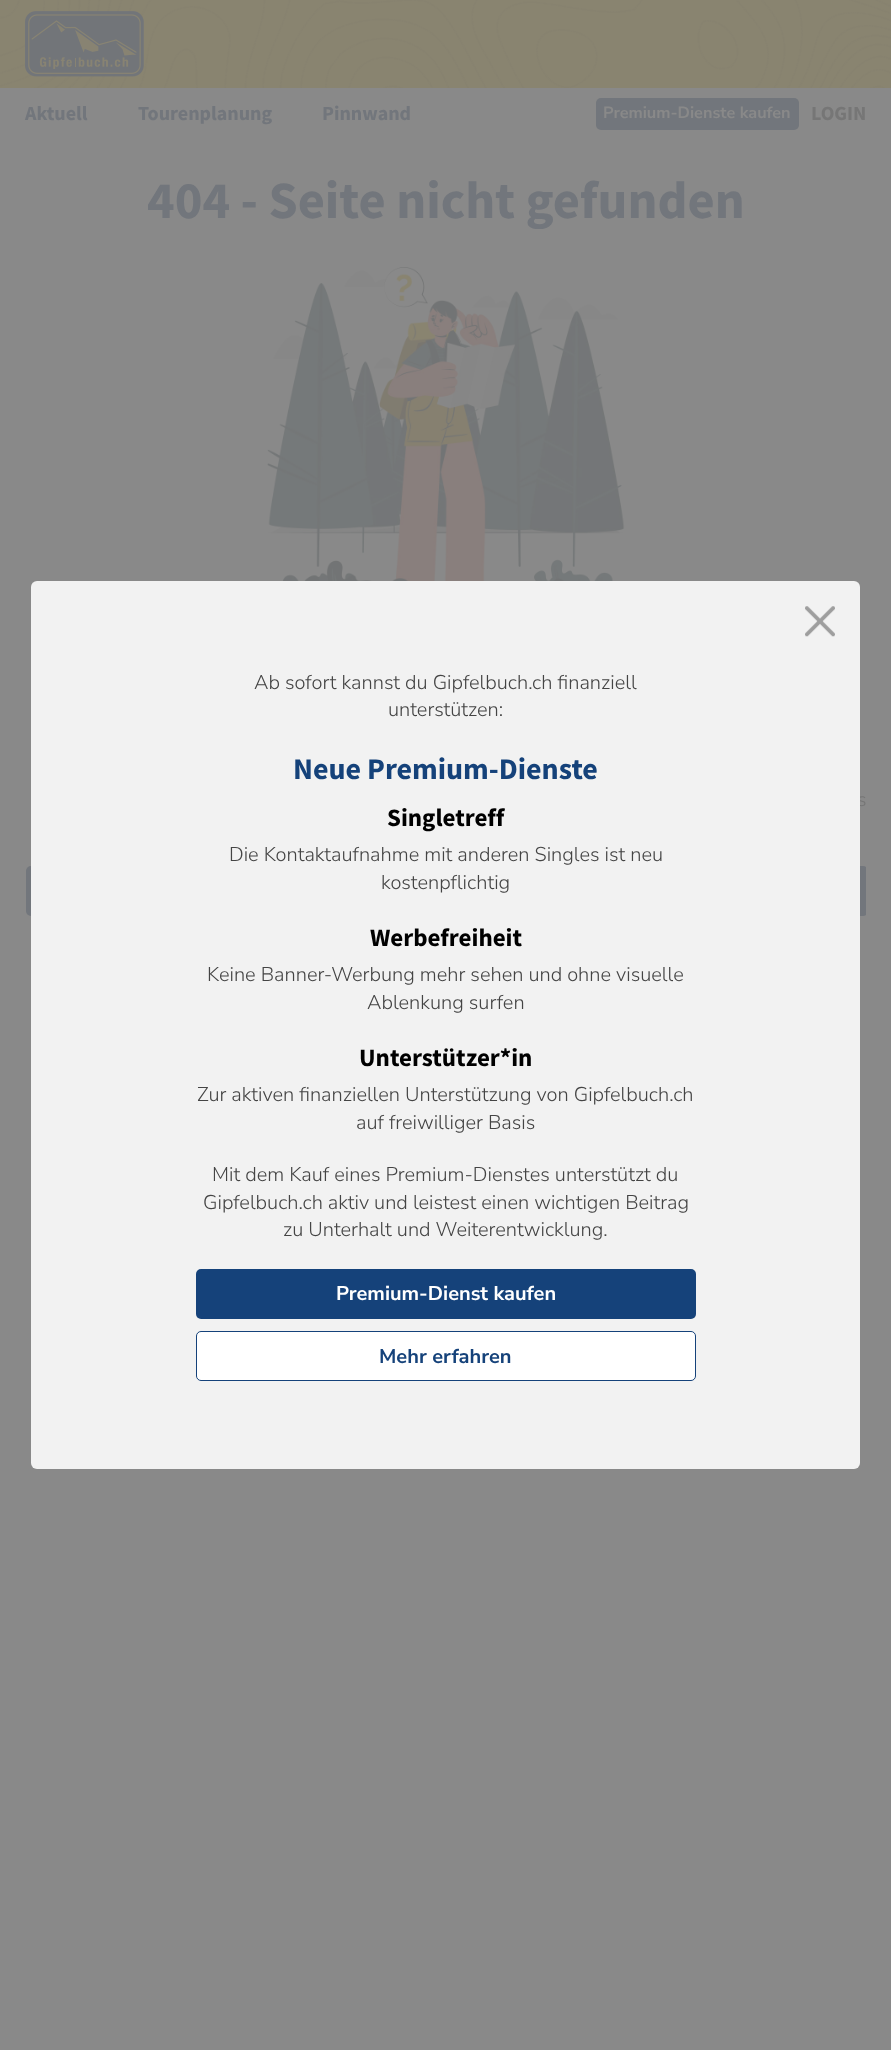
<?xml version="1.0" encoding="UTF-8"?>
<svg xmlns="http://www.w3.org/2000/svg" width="891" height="2050">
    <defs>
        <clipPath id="clip1"><rect x="25" y="235" width="841" height="681"/></clipPath>
    </defs>
    <rect width="100%" height="100%" fill="#898989"/>
    <rect x="0" y="0" width="891" height="88" fill="#898470"/>
    <image x="0" y="0" width="891" height="88" href="img_01.png"/>
    <image x="25" y="11" width="119" height="66" href="img_02.png"/>
    <text x="25" y="120" font-family="Source Sans Pro" font-size="20" font-weight="700" fill="#72767C">Aktuell</text>
    <text x="138" y="120" font-family="Source Sans Pro" font-size="20" font-weight="700" fill="#72767C">Tourenplanung</text>
    <text x="322" y="120" font-family="Source Sans Pro" font-size="20" font-weight="700" fill="#72767C">Pinnwand</text>
    <rect x="596" y="98" width="203" height="32" rx="5" fill="#72767C"/>
    <text x="603" y="118" font-family="Nunito Sans" font-size="16.25" font-weight="700" fill="#898989">Premium-Dienste kaufen</text>
    <text x="811" y="120" font-family="Source Sans Pro" font-size="20" font-weight="700" fill="#767676">LOGIN</text>
    <text x="147" y="218" font-family="Source Sans Pro" font-size="52.5" font-weight="700" fill="#72767C">404 - Seite nicht gefunden</text>
    <image x="260" y="267" width="378" height="314" href="img_03.png"/>
    <text x="857" y="806" font-family="Nunito Sans" font-size="20" font-weight="300" fill="#767676">s</text>
    <g clip-path="url(#clip1)">
        <rect x="26" y="866" width="842" height="50" rx="5" fill="#72767C"/>
    </g>
    <rect x="31" y="581" width="829" height="888" rx="6" fill="#F2F2F2"/>
    <image x="805" y="606" width="30" height="31" href="img_04.png"/>
    <text x="254" y="689" font-family="Nunito Sans" font-size="20" font-weight="300" fill="#444444">Ab sofort kannst du Gipfelbuch.ch finanziell</text>
    <text x="388" y="716" font-family="Nunito Sans" font-size="20" font-weight="300" fill="#444444">unterstützen:</text>
    <text x="293" y="779" font-family="Source Sans Pro" font-size="30" font-weight="700" fill="#15427A">Neue Premium-Dienste</text>
    <text x="387" y="826" font-family="Source Sans Pro" font-size="25" font-weight="700" fill="#000000">Singletreff</text>
    <text x="229" y="861" font-family="Nunito Sans" font-size="20" font-weight="300" fill="#444444">Die Kontaktaufnahme mit anderen Singles ist neu</text>
    <text x="381" y="889" font-family="Nunito Sans" font-size="20" font-weight="300" fill="#444444">kostenpflichtig</text>
    <text x="370" y="946" font-family="Source Sans Pro" font-size="25" font-weight="700" fill="#000000">Werbefreiheit</text>
    <text x="207" y="981" font-family="Nunito Sans" font-size="20" font-weight="300" fill="#444444">Keine Banner-Werbung mehr sehen und ohne visuelle</text>
    <text x="367" y="1009" font-family="Nunito Sans" font-size="20" font-weight="300" fill="#444444">Ablenkung surfen</text>
    <text x="359" y="1066" font-family="Source Sans Pro" font-size="25" font-weight="700" fill="#000000">Unterstützer*in</text>
    <text x="197" y="1101" font-family="Nunito Sans" font-size="20" font-weight="300" fill="#444444">Zur aktiven finanziellen Unterstützung von Gipfelbuch.ch</text>
    <text x="356" y="1129" font-family="Nunito Sans" font-size="20" font-weight="300" fill="#444444">auf freiwilliger Basis</text>
    <text x="212" y="1181" font-family="Nunito Sans" font-size="20" font-weight="300" fill="#444444">Mit dem Kauf eines Premium-Dienstes unterstützt du</text>
    <text x="203" y="1209" font-family="Nunito Sans" font-size="20" font-weight="300" fill="#444444">Gipfelbuch.ch aktiv und leistest einen wichtigen Beitrag</text>
    <text x="283" y="1236" font-family="Nunito Sans" font-size="20" font-weight="300" fill="#444444">zu Unterhalt und Weiterentwicklung.</text>
    <rect x="196" y="1269" width="500" height="50" rx="5" fill="#15427A"/>
    <text x="336" y="1300" font-family="Nunito Sans" font-size="20" font-weight="700" fill="#FFFFFF">Premium-Dienst kaufen</text>
    <rect x="196.5" y="1331.5" width="499" height="49" rx="4.5" fill="#FFFFFF" stroke="#15427A"/>
    <text x="379" y="1363" font-family="Nunito Sans" font-size="20" font-weight="700" fill="#15427A">Mehr erfahren</text>
</svg>
